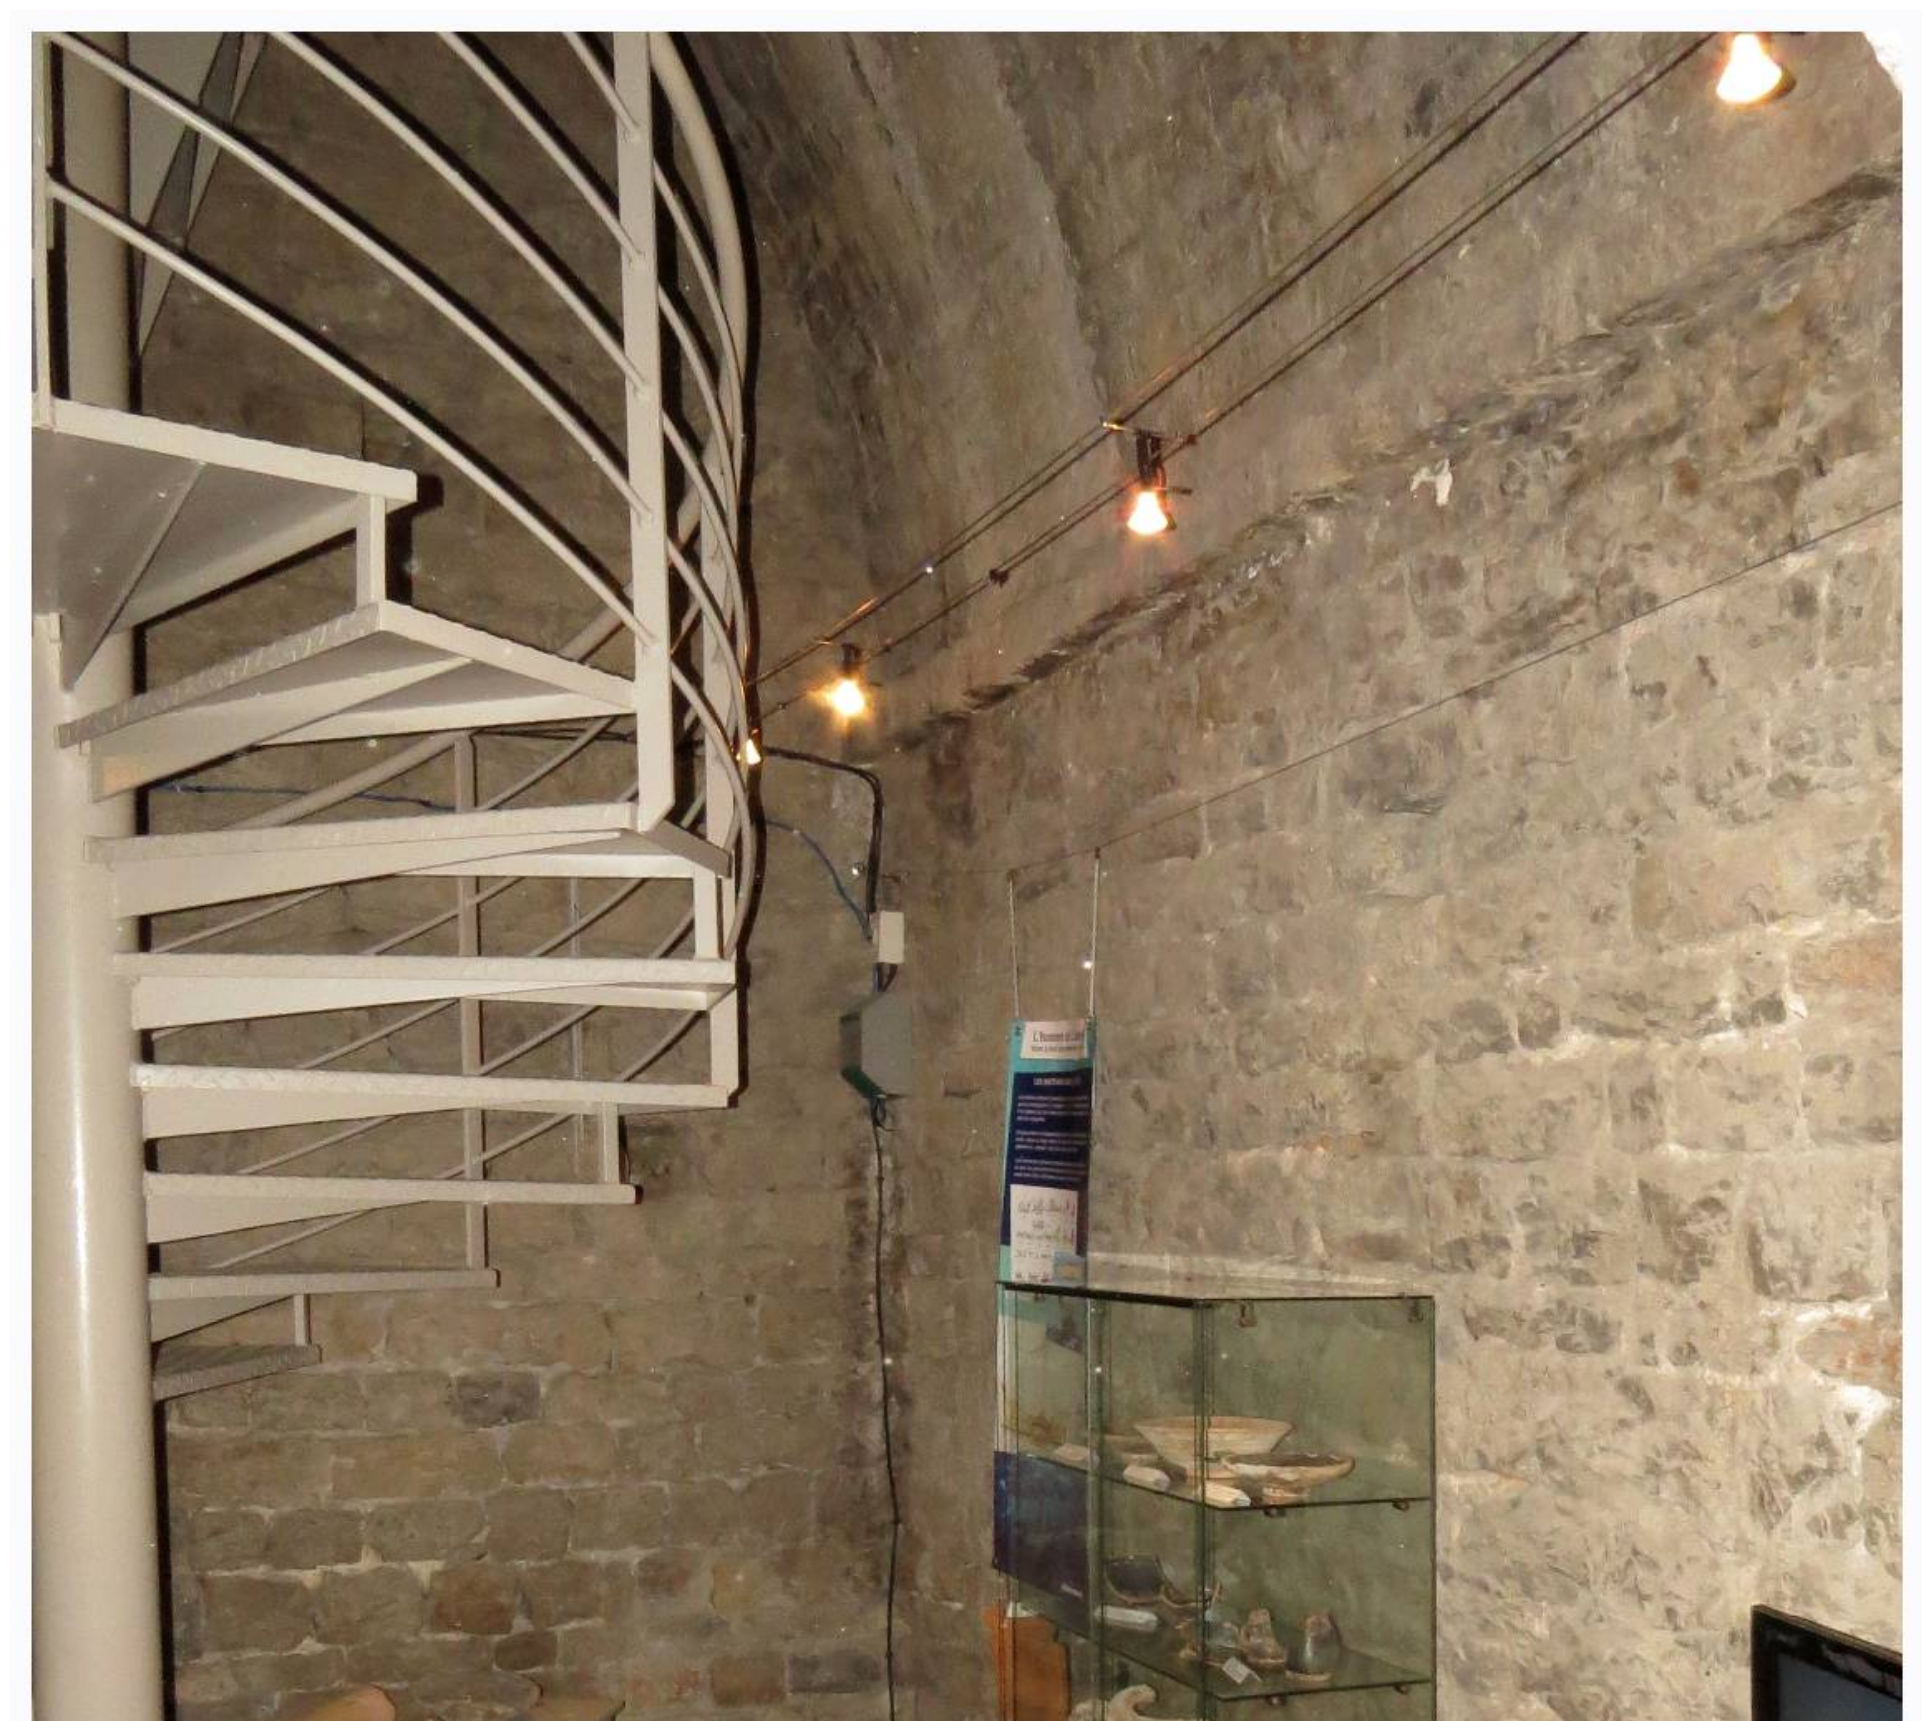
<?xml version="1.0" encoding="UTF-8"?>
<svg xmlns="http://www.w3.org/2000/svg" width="1932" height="1721">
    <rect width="100%" height="100%" fill="#FFFFFF"/>
    <image x="10" y="10" width="1912" height="1711" href="img_01.png"/>
</svg>
